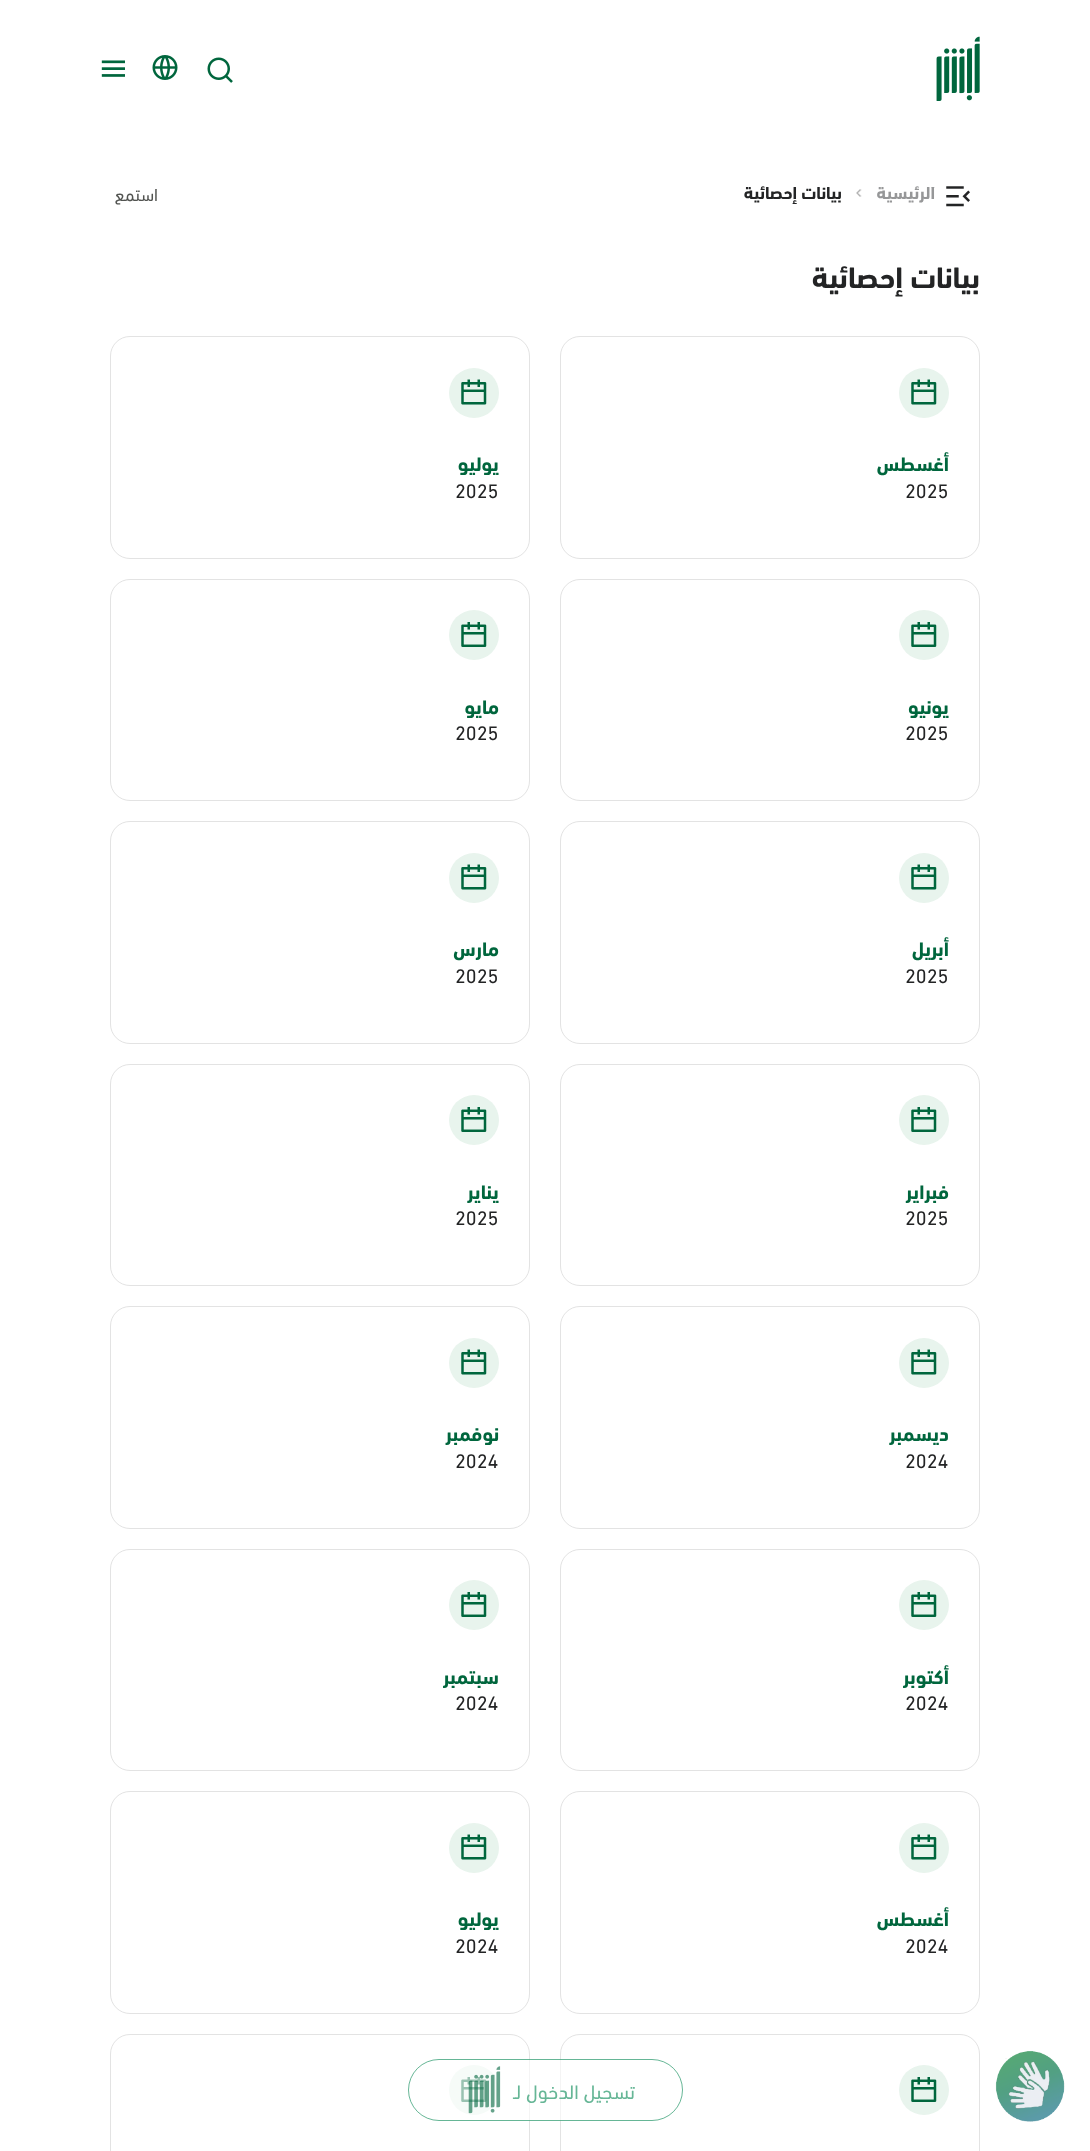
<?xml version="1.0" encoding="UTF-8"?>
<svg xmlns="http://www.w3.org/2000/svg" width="1090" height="2151">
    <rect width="100%" height="100%" fill="#FFFFFF"/>
    <image x="936" y="36" width="44" height="65" href="img_01.png"/>
    <image x="207" y="57" width="26" height="26" href="img_02.png"/>
    <image x="152" y="55" width="26" height="25" href="img_03.png"/>
    <image x="101" y="60" width="24" height="17" href="img_04.png"/>
    <image x="995" y="2051" width="70" height="71" href="img_05.png"/>
    <image x="946" y="186" width="24" height="21" href="img_06.png"/>
    <text x="935" y="199" font-family="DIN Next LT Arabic" font-size="17.5" font-weight="700" direction="rtl" fill="#969798">الرئيسية</text>
    <image x="856" y="189" width="6" height="8" href="img_07.png"/>
    <text x="842" y="199" font-family="DIN Next LT Arabic" font-size="17.5" font-weight="700" direction="rtl" fill="#232425">بيانات إحصائية</text>
    <text x="158" y="201" font-family="DIN Next LT Arabic" font-size="17.5" direction="rtl" fill="#525451">استمع</text>
    <text x="980" y="288" font-family="DIN Next LT Arabic" font-size="30" font-weight="700" direction="rtl" fill="#232425">بيانات إحصائية</text>
    <rect x="560.5" y="336.5" width="419" height="222" rx="19.5" fill="none" stroke="#E3E3E3"/>
    <circle cx="924" cy="393" r="25" fill="#E8F4ED"/>
    <image x="911" y="379" width="26" height="26" href="img_08.png"/>
    <text x="949" y="471" font-family="DIN Next LT Arabic" font-size="20" font-weight="700" direction="rtl" fill="#00663D">أغسطس</text>
    <text x="905" y="498" font-family="DIN Next LT Arabic" font-size="20" fill="#232425">2025</text>
    <rect x="110.5" y="336.5" width="419" height="222" rx="19.5" fill="none" stroke="#E3E3E3"/>
    <circle cx="474" cy="393" r="25" fill="#E8F4ED"/>
    <image x="461" y="379" width="26" height="26" href="img_08.png"/>
    <text x="499" y="471" font-family="DIN Next LT Arabic" font-size="20" font-weight="700" direction="rtl" fill="#00663D">يوليو</text>
    <text x="455" y="498" font-family="DIN Next LT Arabic" font-size="20" fill="#232425">2025</text>
    <rect x="560.5" y="579.5" width="419" height="221" rx="19.5" fill="none" stroke="#E3E3E3"/>
    <circle cx="924" cy="635" r="25" fill="#E8F4ED"/>
    <image x="911" y="622" width="26" height="25" href="img_09.png"/>
    <text x="949" y="714" font-family="DIN Next LT Arabic" font-size="20" font-weight="700" direction="rtl" fill="#00663D">يونيو</text>
    <text x="905" y="740" font-family="DIN Next LT Arabic" font-size="20" fill="#232425">2025</text>
    <rect x="110.5" y="579.5" width="419" height="221" rx="19.5" fill="none" stroke="#E3E3E3"/>
    <circle cx="474" cy="635" r="25" fill="#E8F4ED"/>
    <image x="461" y="622" width="26" height="25" href="img_09.png"/>
    <text x="499" y="714" font-family="DIN Next LT Arabic" font-size="20" font-weight="700" direction="rtl" fill="#00663D">مايو</text>
    <text x="455" y="740" font-family="DIN Next LT Arabic" font-size="20" fill="#232425">2025</text>
    <rect x="560.5" y="821.5" width="419" height="222" rx="19.5" fill="none" stroke="#E3E3E3"/>
    <circle cx="924" cy="878" r="25" fill="#E8F4ED"/>
    <image x="911" y="864" width="26" height="26" href="img_08.png"/>
    <text x="949" y="956" font-family="DIN Next LT Arabic" font-size="20" font-weight="700" direction="rtl" fill="#00663D">أبريل</text>
    <text x="905" y="983" font-family="DIN Next LT Arabic" font-size="20" fill="#232425">2025</text>
    <rect x="110.5" y="821.5" width="419" height="222" rx="19.5" fill="none" stroke="#E3E3E3"/>
    <circle cx="474" cy="878" r="25" fill="#E8F4ED"/>
    <image x="461" y="864" width="26" height="26" href="img_08.png"/>
    <text x="499" y="956" font-family="DIN Next LT Arabic" font-size="20" font-weight="700" direction="rtl" fill="#00663D">مارس</text>
    <text x="455" y="983" font-family="DIN Next LT Arabic" font-size="20" fill="#232425">2025</text>
    <rect x="560.5" y="1064.5" width="419" height="221" rx="19.5" fill="none" stroke="#E3E3E3"/>
    <circle cx="924" cy="1120" r="25" fill="#E8F4ED"/>
    <image x="911" y="1107" width="26" height="25" href="img_09.png"/>
    <text x="949" y="1199" font-family="DIN Next LT Arabic" font-size="20" font-weight="700" direction="rtl" fill="#00663D">فبراير</text>
    <text x="905" y="1225" font-family="DIN Next LT Arabic" font-size="20" fill="#232425">2025</text>
    <rect x="110.5" y="1064.5" width="419" height="221" rx="19.5" fill="none" stroke="#E3E3E3"/>
    <circle cx="474" cy="1120" r="25" fill="#E8F4ED"/>
    <image x="461" y="1107" width="26" height="25" href="img_09.png"/>
    <text x="499" y="1199" font-family="DIN Next LT Arabic" font-size="20" font-weight="700" direction="rtl" fill="#00663D">يناير</text>
    <text x="455" y="1225" font-family="DIN Next LT Arabic" font-size="20" fill="#232425">2025</text>
    <rect x="560.5" y="1306.5" width="419" height="222" rx="19.5" fill="none" stroke="#E3E3E3"/>
    <circle cx="924" cy="1363" r="25" fill="#E8F4ED"/>
    <image x="911" y="1349" width="26" height="26" href="img_08.png"/>
    <text x="949" y="1441" font-family="DIN Next LT Arabic" font-size="20" font-weight="700" direction="rtl" fill="#00663D">ديسمبر</text>
    <text x="905" y="1468" font-family="DIN Next LT Arabic" font-size="20" fill="#232425">2024</text>
    <rect x="110.5" y="1306.5" width="419" height="222" rx="19.5" fill="none" stroke="#E3E3E3"/>
    <circle cx="474" cy="1363" r="25" fill="#E8F4ED"/>
    <image x="461" y="1349" width="26" height="26" href="img_08.png"/>
    <text x="499" y="1441" font-family="DIN Next LT Arabic" font-size="20" font-weight="700" direction="rtl" fill="#00663D">نوفمبر</text>
    <text x="455" y="1468" font-family="DIN Next LT Arabic" font-size="20" fill="#232425">2024</text>
    <rect x="560.5" y="1549.5" width="419" height="221" rx="19.5" fill="none" stroke="#E3E3E3"/>
    <circle cx="924" cy="1605" r="25" fill="#E8F4ED"/>
    <image x="911" y="1592" width="26" height="25" href="img_09.png"/>
    <text x="949" y="1684" font-family="DIN Next LT Arabic" font-size="20" font-weight="700" direction="rtl" fill="#00663D">أكتوبر</text>
    <text x="905" y="1710" font-family="DIN Next LT Arabic" font-size="20" fill="#232425">2024</text>
    <rect x="110.5" y="1549.5" width="419" height="221" rx="19.5" fill="none" stroke="#E3E3E3"/>
    <circle cx="474" cy="1605" r="25" fill="#E8F4ED"/>
    <image x="461" y="1592" width="26" height="25" href="img_09.png"/>
    <text x="499" y="1684" font-family="DIN Next LT Arabic" font-size="20" font-weight="700" direction="rtl" fill="#00663D">سبتمبر</text>
    <text x="455" y="1710" font-family="DIN Next LT Arabic" font-size="20" fill="#232425">2024</text>
    <rect x="560.5" y="1791.5" width="419" height="222" rx="19.5" fill="none" stroke="#E3E3E3"/>
    <circle cx="924" cy="1848" r="25" fill="#E8F4ED"/>
    <image x="911" y="1834" width="26" height="26" href="img_08.png"/>
    <text x="949" y="1926" font-family="DIN Next LT Arabic" font-size="20" font-weight="700" direction="rtl" fill="#00663D">أغسطس</text>
    <text x="905" y="1953" font-family="DIN Next LT Arabic" font-size="20" fill="#232425">2024</text>
    <rect x="110.5" y="1791.5" width="419" height="222" rx="19.5" fill="none" stroke="#E3E3E3"/>
    <circle cx="474" cy="1848" r="25" fill="#E8F4ED"/>
    <image x="461" y="1834" width="26" height="26" href="img_08.png"/>
    <text x="499" y="1926" font-family="DIN Next LT Arabic" font-size="20" font-weight="700" direction="rtl" fill="#00663D">يوليو</text>
    <text x="455" y="1953" font-family="DIN Next LT Arabic" font-size="20" fill="#232425">2024</text>
    <rect x="560.5" y="2034.5" width="419" height="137" rx="19.5" fill="none" stroke="#E3E3E3"/>
    <circle cx="924" cy="2090" r="25" fill="#E8F4ED"/>
    <image x="911" y="2077" width="26" height="25" href="img_09.png"/>
    <rect x="110.5" y="2034.5" width="419" height="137" rx="19.5" fill="none" stroke="#E3E3E3"/>
    <circle cx="474" cy="2090" r="25" fill="#E8F4ED"/>
    <image x="461" y="2077" width="26" height="25" href="img_09.png"/>
    <rect x="408" y="2059" width="275" height="62" rx="31" fill="#FFFFFF" fill-opacity="0.6"/>
    <rect x="408.5" y="2059.5" width="274" height="61" rx="30.5" fill="none" stroke="#008550" stroke-opacity="0.6"/>
    <text x="635" y="2099" font-family="DIN Next LT Arabic" font-size="20" direction="rtl" fill="#66B696">تسجيل الدخول</text>
    <text x="521" y="2099" font-family="DIN Next LT Arabic" font-size="20" direction="rtl" fill="#66B696">لـ</text>
    <image x="468" y="2066" width="33" height="48" href="img_10.png"/>
</svg>
